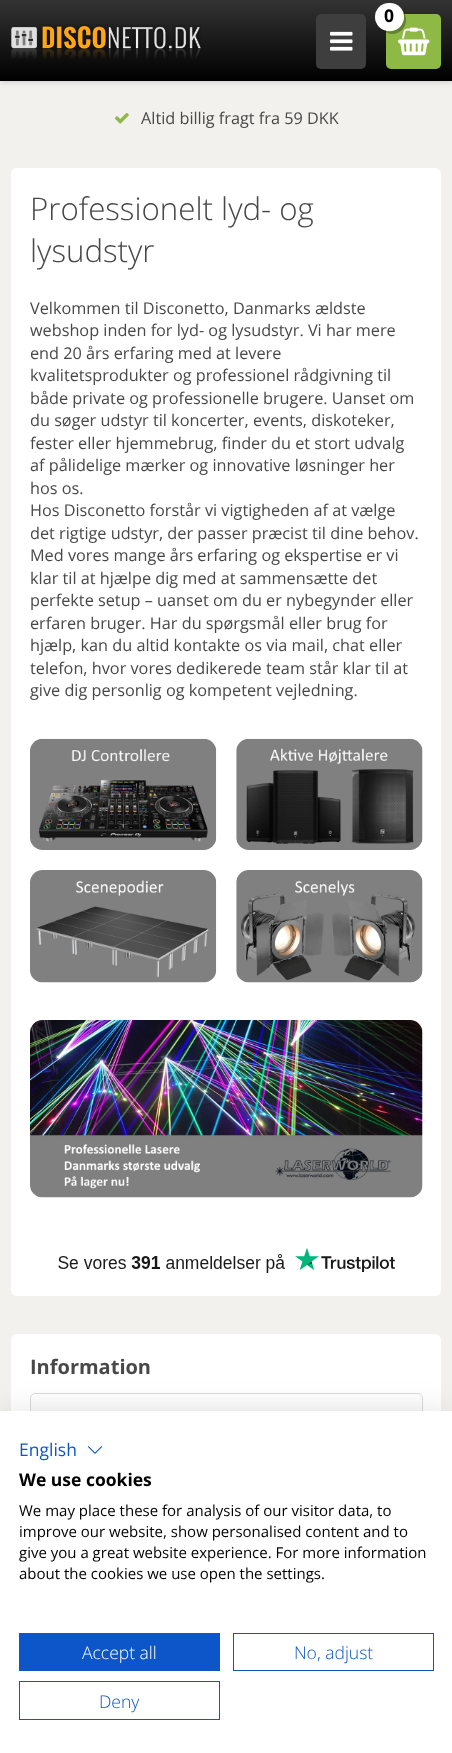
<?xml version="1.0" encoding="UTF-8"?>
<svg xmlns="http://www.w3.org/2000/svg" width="452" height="1753">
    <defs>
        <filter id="blur1" x="-50%" y="-200%" width="200%" height="500%"><feGaussianBlur stdDeviation="3"/></filter>
        <linearGradient id="g1" gradientUnits="userSpaceOnUse" x1="226" y1="0" x2="226" y2="81"><stop offset="0" stop-color="#333333"/><stop offset="1" stop-color="#000000"/></linearGradient>
        <clipPath id="clip1"><rect x="30" y="1393" width="393" height="43" rx="5"/></clipPath>
        <linearGradient id="g2" gradientUnits="userSpaceOnUse" x1="226" y1="1394" x2="226" y2="1435"><stop offset="0" stop-color="#FFFFFF"/><stop offset="0.94" stop-color="#F4F4F4"/><stop offset="0.94" stop-color="#E7E7E7"/></linearGradient>
        <filter id="blur2" x="-50%" y="-200%" width="200%" height="500%"><feGaussianBlur stdDeviation="15"/></filter>
    </defs>
    <rect width="100%" height="100%" fill="#F3F1EE"/>
    <rect x="0" y="0" width="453" height="81" fill="#000000" fill-opacity="0.2" filter="url(#blur1)"/>
    <rect x="0" y="0" width="452" height="81" fill="url(#g1)"/>
    <image x="11" y="24" width="190" height="35" href="img_01.png"/>
    <rect x="316" y="14" width="50" height="55" rx="5" fill="#3E3E3E"/>
    <image x="330" y="31" width="23" height="20" href="img_02.png"/>
    <rect x="386" y="14" width="55" height="55" rx="5" fill="#8FB945"/>
    <image x="398" y="27" width="32" height="29" href="img_03.png"/>
    <path d="M 381 28.5 C 386 35 396 36 402 30 C 408 24 407.5 13.5 400.5 8 C 411 21 394 38.5 381 28.5 Z" fill="#000000" fill-opacity="0.3"/>
    <rect x="375" y="3" width="29" height="28" rx="14" fill="#FFFFFF"/>
    <text x="384" y="22" font-family="Open Sans" font-size="17.5" font-weight="700" fill="#000000">0</text>
    <image x="114" y="112" width="15" height="12" href="img_04.png"/>
    <text x="141" y="124" font-family="Open Sans" font-size="16.25" fill="#484848">Altid billig fragt fra 59 DKK</text>
    <rect x="11" y="168" width="430" height="1128" rx="6" fill="#FFFFFF"/>
    <text font-family="Open Sans" font-size="31.25" font-weight="300" fill="#484848">
        <tspan x="30" y="220">Professionelt lyd- og</tspan>
        <tspan x="30" y="262">lysudstyr</tspan>
    </text>
    <text font-family="Open Sans" font-size="16.25" fill="#484848">
        <tspan x="30" y="314">Velkommen til Disconetto, Danmarks ældste</tspan>
        <tspan x="30" y="336">webshop inden for lyd- og lysudstyr. Vi har mere</tspan>
        <tspan x="30" y="359">end 20 års erfaring med at levere</tspan>
        <tspan x="30" y="381">kvalitetsprodukter og professionel rådgivning til</tspan>
        <tspan x="30" y="404">både private og professionelle brugere. Uanset om</tspan>
        <tspan x="30" y="426">du søger udstyr til koncerter, events, diskoteker,</tspan>
        <tspan x="30" y="449">fester eller hjemmebrug, finder du et stort udvalg</tspan>
        <tspan x="30" y="471">af pålidelige mærker og innovative løsninger her</tspan>
        <tspan x="30" y="494">hos os.</tspan>
        <tspan x="30" y="516">Hos Disconetto forstår vi vigtigheden af at vælge</tspan>
        <tspan x="30" y="539">det rigtige udstyr, der passer præcist til dine behov.</tspan>
        <tspan x="30" y="561">Med vores mange års erfaring og ekspertise er vi</tspan>
        <tspan x="30" y="584">klar til at hjælpe dig med at sammensætte det</tspan>
        <tspan x="30" y="606">perfekte setup – uanset om du er nybegynder eller</tspan>
        <tspan x="30" y="629">erfaren bruger. Har du spørgsmål eller brug for</tspan>
        <tspan x="30" y="651">hjælp, kan du altid kontakte os via mail, chat eller</tspan>
        <tspan x="30" y="674">telefon, hvor vores dedikerede team står klar til at</tspan>
        <tspan x="30" y="696">give dig personlig og kompetent vejledning.</tspan>
    </text>
    <image x="30" y="738" width="187" height="112" href="img_05.png"/>
    <image x="236" y="738" width="187" height="112" href="img_06.png"/>
    <image x="30" y="870" width="187" height="113" href="img_07.png"/>
    <image x="236" y="870" width="187" height="113" href="img_08.png"/>
    <image x="30" y="1020" width="393" height="178" href="img_09.png"/>
    <image x="58" y="1248" width="337" height="25" href="img_10.png"/>
    <rect x="11" y="1334" width="430" height="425" rx="6" fill="#FFFFFF"/>
    <text x="30" y="1374" font-family="Open Sans" font-size="20" font-weight="700" fill="#484848">Information</text>
    <g clip-path="url(#clip1)">
        <rect x="30" y="1394" width="393" height="17" fill="url(#g2)"/>
    </g>
    <rect x="30.5" y="1393.5" width="392" height="42" rx="4.5" fill="none" stroke="#D8DADC"/>
    <rect x="0" y="1411" width="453" height="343" fill="#000000" fill-opacity="0.1" filter="url(#blur2)"/>
    <rect x="0" y="1411" width="452" height="342" fill="#FFFFFF"/>
    <text x="19" y="1456" font-family="Open Sans" font-size="17.5" fill="#0D56C9">English</text>
    <image x="87" y="1446" width="16" height="8" href="img_11.png"/>
    <text x="19" y="1486" font-family="Open Sans" font-size="17.5" font-weight="700" fill="#000000">We use cookies</text>
    <text font-family="Open Sans" font-size="15" fill="#000000">
        <tspan x="19" y="1516">We may place these for analysis of our visitor data, to</tspan>
        <tspan x="19" y="1537">improve our website, show personalised content and to</tspan>
        <tspan x="19" y="1558">give you a great website experience. For more information</tspan>
        <tspan x="19" y="1579">about the cookies we use open the settings.</tspan>
    </text>
    <rect x="19" y="1633" width="201" height="38" fill="#0D56C9"/>
    <text x="82" y="1659" font-family="Open Sans" font-size="17.5" font-weight="300" fill="#FFFFFF">Accept all</text>
    <rect x="233.5" y="1633.5" width="200" height="37" fill="none" stroke="#0D56C9"/>
    <text x="294" y="1659" font-family="Open Sans" font-size="17.5" font-weight="300" fill="#0D56C9">No, adjust</text>
    <rect x="19.5" y="1681.5" width="200" height="38" fill="none" stroke="#0D56C9"/>
    <text x="99" y="1708" font-family="Open Sans" font-size="17.5" font-weight="300" fill="#0D56C9">Deny</text>
</svg>
